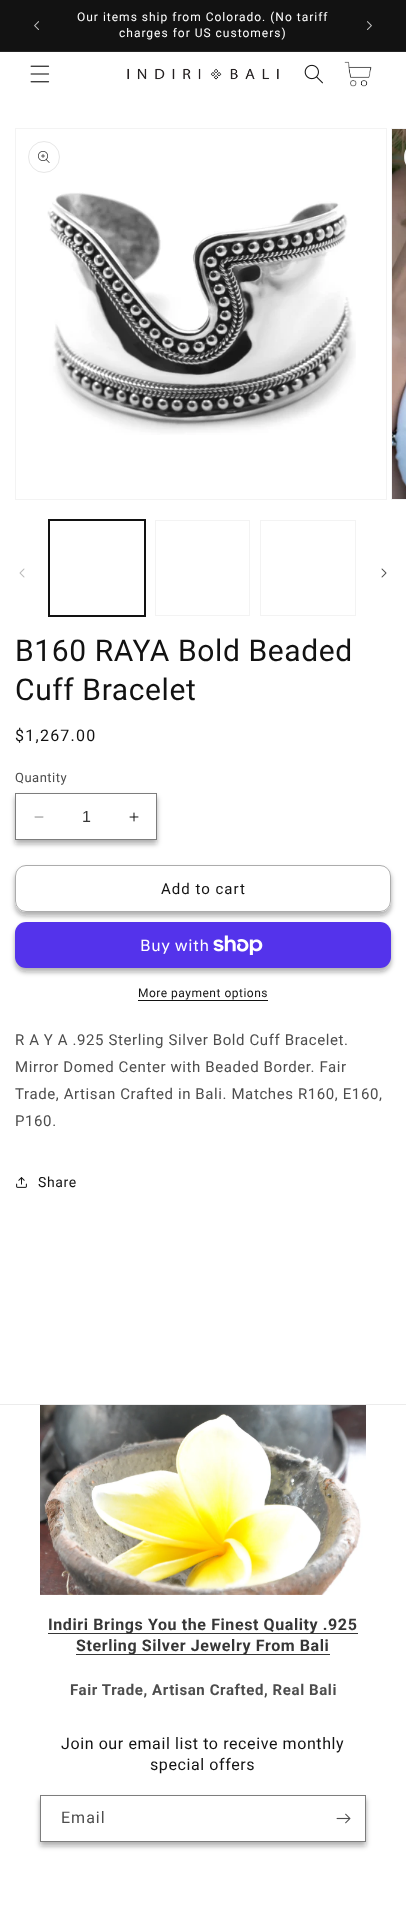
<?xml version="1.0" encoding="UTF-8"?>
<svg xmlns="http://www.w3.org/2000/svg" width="406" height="1907">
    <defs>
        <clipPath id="clip1"><path d="M 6 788 H 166 V 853 H 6 Z M 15 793 H 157 V 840 H 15 Z" clip-rule="evenodd"/></clipPath>
        <filter id="blur1" x="-50%" y="-200%" width="200%" height="500%"><feGaussianBlur stdDeviation="2.5"/></filter>
        <clipPath id="clip2"><path d="M 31 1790 H 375 V 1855 H 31 Z M 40 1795 H 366 V 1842 H 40 Z" clip-rule="evenodd"/></clipPath>
    </defs>
    <rect width="100%" height="100%" fill="#FFFFFF"/>
    <rect x="0" y="0" width="406" height="51" fill="#121212"/>
    <rect x="0" y="51" width="406" height="1" fill="#252525"/>
    <image x="34" y="21" width="5" height="9" href="img_01.png"/>
    <text x="77" y="21" font-family="Roboto" font-size="12" letter-spacing="1" fill="#FFFFFF">Our items ship from Colorado. (No tariff</text>
    <text x="119" y="37" font-family="Roboto" font-size="12" letter-spacing="1" fill="#FFFFFF">charges for US customers)</text>
    <image x="367" y="21" width="5" height="9" href="img_02.png"/>
    <image x="30" y="65" width="20" height="18" href="img_03.png"/>
    <image x="127" y="68" width="152" height="12" href="img_04.png"/>
    <image x="304" y="64" width="19" height="20" href="img_05.png"/>
    <image x="344" y="61" width="28" height="26" href="img_06.png"/>
    <rect x="15.5" y="128.5" width="371" height="371" fill="none" stroke="#F3F3F3"/>
    <circle cx="44" cy="157" r="15.5" fill="none" stroke="#E7E7E7"/>
    <image x="38" y="151" width="12" height="12" href="img_07.png"/>
    <image x="47" y="192" width="309" height="243" href="img_08.png"/>
    <rect x="391.5" y="128.5" width="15" height="371" fill="none" stroke="#F3F3F3"/>
    <image x="392" y="129" width="14" height="370" href="img_09.png"/>
    <path d="M 420 141 H 406 V 173 H 420 C 411 173 404 166 404 157 C 404 148 411 141 420 141 Z" fill="#FFFFFF"/>
    <rect x="404.5" y="141.5" width="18" height="31" rx="15.5" fill="none" stroke="#121212" stroke-opacity="0.1"/>
    <image x="19" y="568" width="6" height="10" href="img_10.png"/>
    <rect x="48.5" y="519.5" width="97" height="97" fill="none" stroke="#121212"/>
    <rect x="49.5" y="520.5" width="95" height="95" fill="none" stroke="#121212"/>
    <rect x="155.5" y="520.5" width="94" height="95" fill="none" stroke="#F3F3F3"/>
    <rect x="260.5" y="520.5" width="95" height="95" fill="none" stroke="#F3F3F3"/>
    <image x="381" y="568" width="6" height="10" href="img_11.png"/>
    <text font-family="Roboto" font-size="30" letter-spacing="0.6" fill="#121212">
        <tspan x="15" y="661">B160 RAYA Bold Beaded</tspan>
        <tspan x="15" y="700">Cuff Bracelet</tspan>
    </text>
    <text x="15" y="741" font-family="Roboto" font-size="16" letter-spacing="1.25" fill="#121212">$1,267.00</text>
    <text x="15" y="782" font-family="Roboto" font-size="13" letter-spacing="0.5" fill="#4D4D4D">Quantity</text>
    <g clip-path="url(#clip1)">
        <rect x="15" y="797" width="142" height="47" fill="#121212" fill-opacity="0.35" filter="url(#blur1)"/>
    </g>
    <image x="34" y="816" width="10" height="2" href="img_12.png"/>
    <image x="129" y="812" width="10" height="10" href="img_13.png"/>
    <rect x="15.5" y="793.5" width="141" height="46" fill="none" stroke="#7D7D7D"/>
    <text x="82" y="822" font-family="Liberation Sans" font-size="16" fill="#363636">1</text>
    <rect x="15" y="869" width="376" height="47" rx="11" fill="#121212" fill-opacity="0.35" filter="url(#blur1)"/>
    <rect x="15" y="865" width="376" height="47" rx="11" fill="#FFFFFF"/>
    <rect x="15.5" y="865.5" width="375" height="46" rx="10.5" fill="none" stroke="#FFFFFF"/>
    <rect x="15.5" y="865.5" width="375" height="46" rx="10.5" fill="none" stroke="#ACACAC"/>
    <text x="161" y="894" font-family="Roboto" font-size="15" letter-spacing="1" fill="#121212">Add to cart</text>
    <rect x="15" y="926" width="376" height="46" rx="11" fill="#121212" fill-opacity="0.35" filter="url(#blur1)"/>
    <rect x="15" y="922" width="376" height="46" rx="11" fill="#5433EB"/>
    <text x="140" y="951" font-family="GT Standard" font-size="16" letter-spacing="0.6" fill="#FFFFFF">Buy with</text>
    <image x="213" y="935" width="50" height="20" href="img_14.png"/>
    <text x="138" y="997" font-family="Roboto" font-size="12" letter-spacing="0.5" fill="#121212">More payment options</text>
    <rect x="138" y="1000" width="130" height="1" fill="#121212"/>
    <text font-family="Roboto" font-size="15" letter-spacing="0.6" fill="#4D4D4D">
        <tspan x="15" y="1045">R A Y A .925 Sterling Silver Bold Cuff Bracelet.</tspan>
        <tspan x="15" y="1072">Mirror Domed Center with Beaded Border. Fair</tspan>
        <tspan x="15" y="1099">Trade, Artisan Crafted in Bali. Matches R160, E160,</tspan>
        <tspan x="15" y="1126">P160.</tspan>
    </text>
    <image x="16" y="1177" width="11" height="11" href="img_15.png"/>
    <text x="38" y="1187" font-family="Roboto" font-size="14" letter-spacing="0.6" fill="#121212">Share</text>
    <rect x="0" y="1404" width="406" height="1" fill="#ECECEC"/>
    <image x="40" y="1405" width="326" height="190" href="img_16.png"/>
    <rect x="48" y="1633" width="310" height="1" fill="#363636"/>
    <text x="48" y="1630" font-family="Roboto" font-size="16" font-weight="700" letter-spacing="0.6" fill="#363636">Indiri Brings You the Finest Quality .925</text>
    <rect x="76" y="1654" width="254" height="1" fill="#363636"/>
    <text x="76" y="1651" font-family="Roboto" font-size="16" font-weight="700" letter-spacing="0.6" fill="#363636">Sterling Silver Jewelry From Bali</text>
    <text x="70" y="1695" font-family="Roboto" font-size="15" font-weight="700" letter-spacing="0.6" fill="#4D4D4D">Fair Trade, Artisan Crafted, Real Bali</text>
    <text x="61" y="1749" font-family="Roboto" font-size="16" letter-spacing="0.6" fill="#121212">Join our email list to receive monthly</text>
    <text x="150" y="1770" font-family="Roboto" font-size="16" letter-spacing="0.6" fill="#121212">special offers</text>
    <g clip-path="url(#clip2)">
        <rect x="40" y="1799" width="326" height="47" fill="#121212" fill-opacity="0.35" filter="url(#blur1)"/>
    </g>
    <rect x="40.5" y="1795.5" width="325" height="46" fill="none" stroke="#7D7D7D"/>
    <text x="61" y="1823" font-family="Roboto" font-size="16" letter-spacing="1" fill="#4D4D4D">Email</text>
    <image x="336" y="1813" width="15" height="11" href="img_17.png"/>
</svg>
